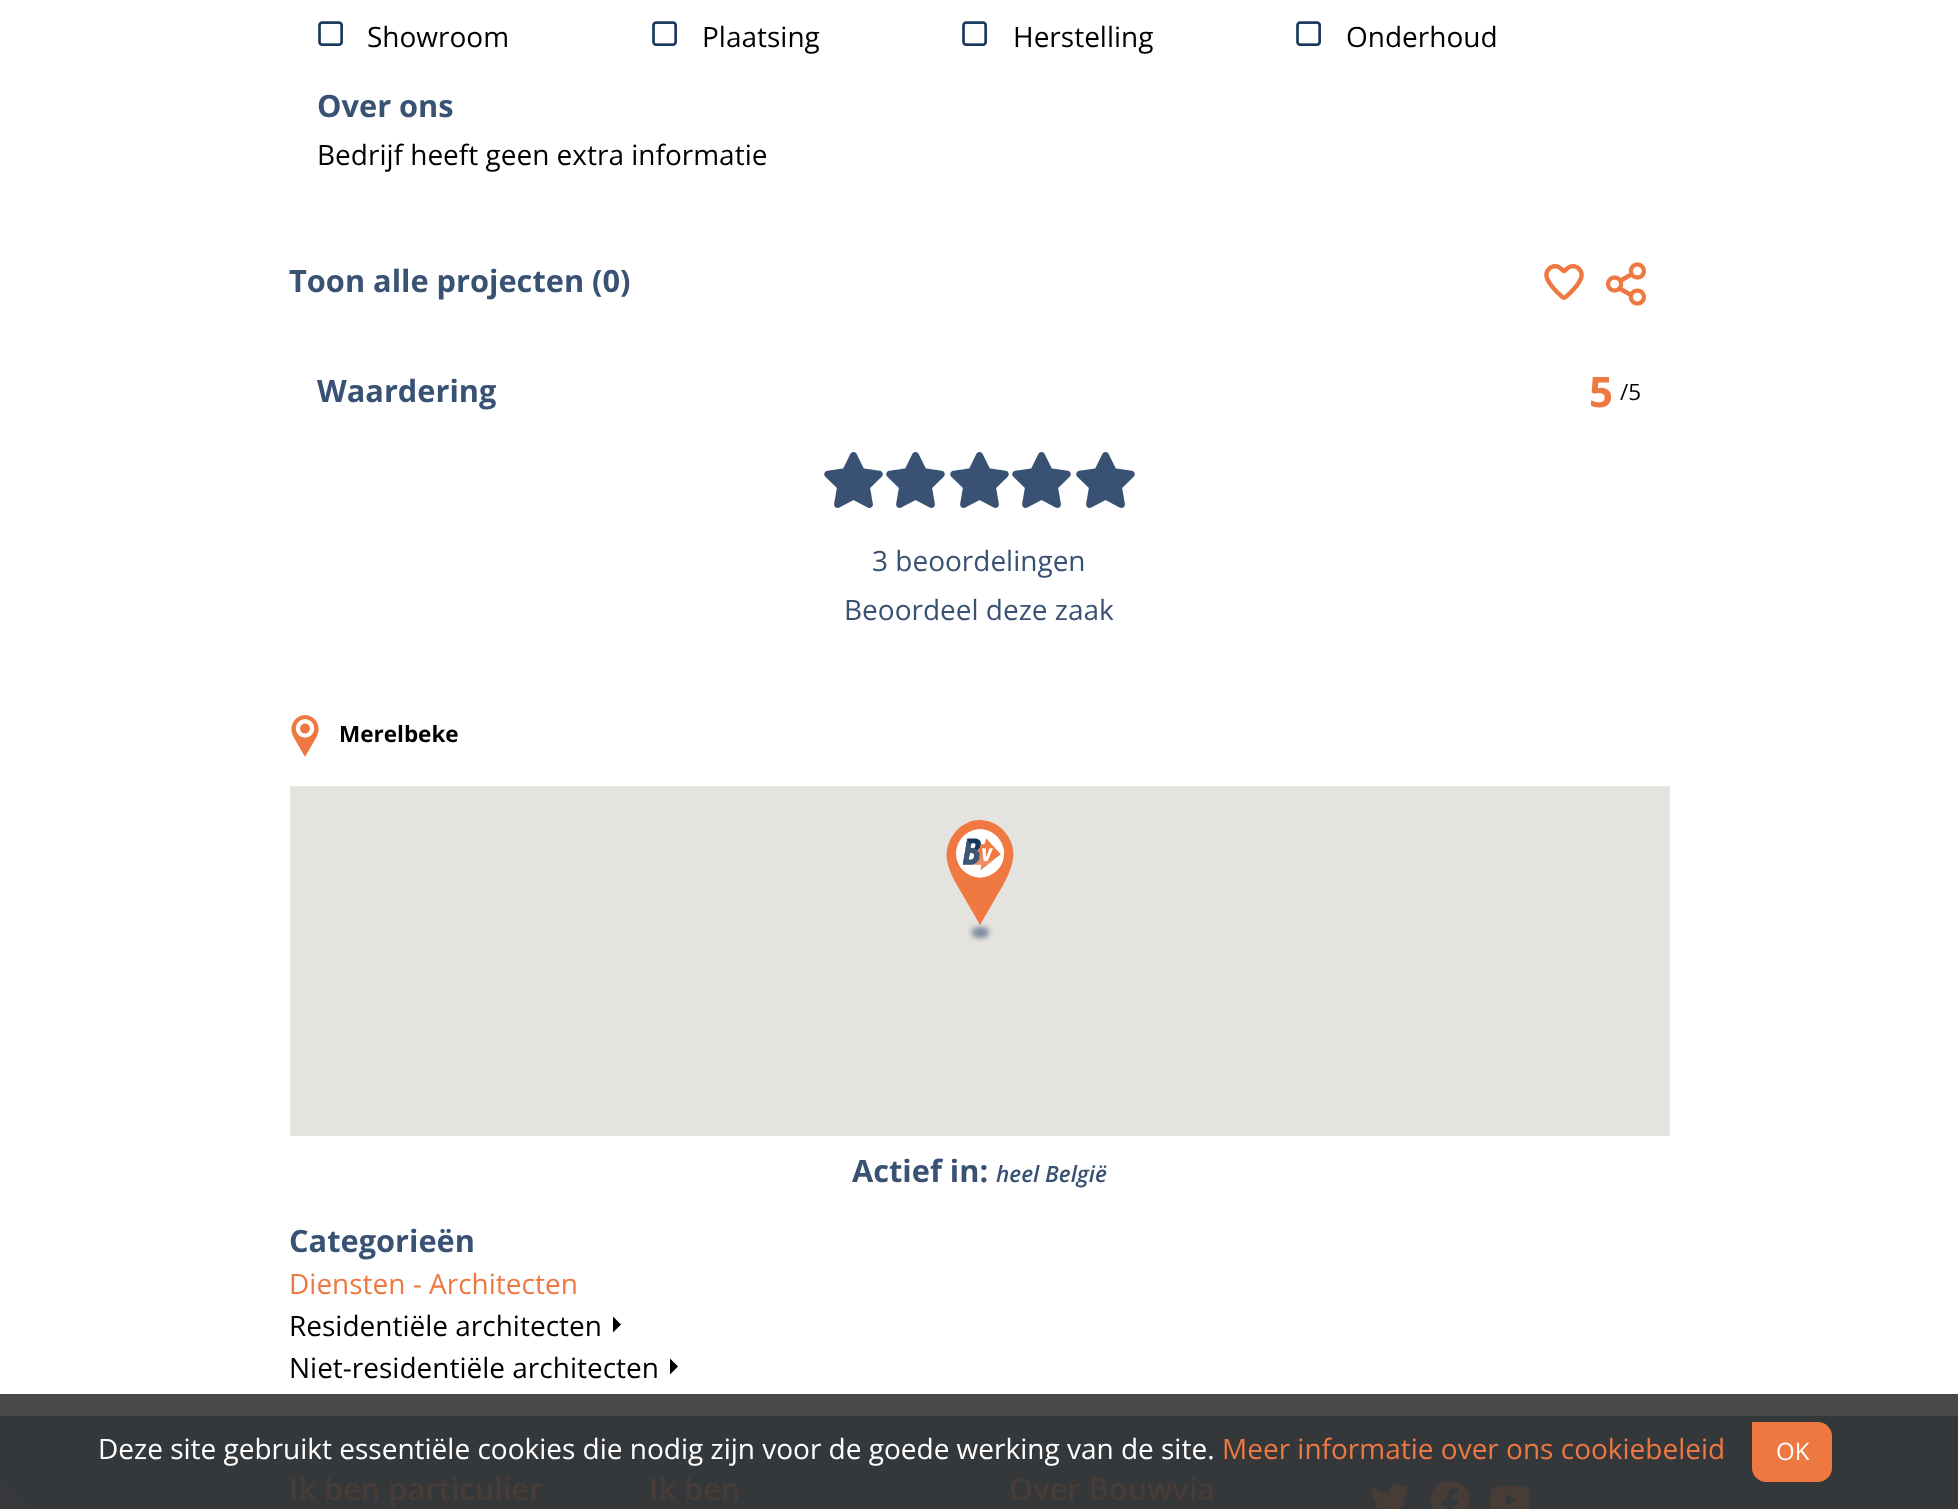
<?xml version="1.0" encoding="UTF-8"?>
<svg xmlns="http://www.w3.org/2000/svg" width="1958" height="1509">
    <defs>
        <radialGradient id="g1" gradientUnits="userSpaceOnUse" cx="0" cy="0" r="1" gradientTransform="matrix(2769 0 0 1181 1958 1045)"><stop offset="0" stop-color="#35383B"/><stop offset="0.79" stop-color="#35383B"/><stop offset="0.8" stop-color="#36383B"/></radialGradient>
    </defs>
    <rect width="100%" height="100%" fill="#FFFFFF"/>
    <rect x="0" y="1394" width="1958" height="22" fill="#494949"/>
    <image x="318" y="21" width="25" height="25" href="img_01.png"/>
    <text x="367" y="47" font-family="Open Sans" font-size="28" fill="#000000">Showroom</text>
    <image x="652" y="21" width="25" height="25" href="img_01.png"/>
    <text x="702" y="47" font-family="Open Sans" font-size="28" fill="#000000">Plaatsing</text>
    <image x="962" y="21" width="25" height="25" href="img_01.png"/>
    <text x="1013" y="47" font-family="Open Sans" font-size="28" fill="#000000">Herstelling</text>
    <image x="1296" y="21" width="25" height="25" href="img_01.png"/>
    <text x="1346" y="47" font-family="Open Sans" font-size="28" fill="#000000">Onderhoud</text>
    <text x="317" y="117" font-family="Open Sans" font-size="30.75" font-weight="700" fill="#395274">Over ons</text>
    <text x="317" y="165" font-family="Open Sans" font-size="28" fill="#000000">Bedrijf heeft geen extra informatie</text>
    <text x="289" y="292" font-family="Open Sans" font-size="30.75" font-weight="700" fill="#395274">Toon alle projecten (0)</text>
    <image x="1544" y="264" width="40" height="36" href="img_02.png"/>
    <image x="1606" y="262" width="40" height="44" href="img_03.png"/>
    <text x="317" y="402" font-family="Open Sans" font-size="30.75" font-weight="700" fill="#395274">Waardering</text>
    <text x="1589" y="407" font-family="Open Sans" font-size="42" font-weight="700" fill="#EE7842">5</text>
    <text x="1620" y="400" font-family="Open Sans" font-size="22.5" fill="#000000">/5</text>
    <image x="824" y="452" width="59" height="56" href="img_04.png"/>
    <image x="886" y="452" width="59" height="56" href="img_04.png"/>
    <image x="950" y="452" width="59" height="56" href="img_04.png"/>
    <image x="1012" y="452" width="59" height="56" href="img_04.png"/>
    <image x="1076" y="452" width="59" height="56" href="img_04.png"/>
    <text x="872" y="571" font-family="Open Sans" font-size="28" fill="#395274">3 beoordelingen</text>
    <text x="844" y="620" font-family="Open Sans" font-size="28" fill="#395274">Beoordeel deze zaak</text>
    <image x="291" y="715" width="28" height="42" href="img_05.png"/>
    <text x="339" y="742" font-family="Open Sans" font-size="22.5" font-weight="700" fill="#000000">Merelbeke</text>
    <rect x="290" y="786" width="1380" height="350" fill="#E5E3DF"/>
    <image x="946" y="820" width="68" height="122" href="img_06.png"/>
    <text x="852" y="1182" font-family="Open Sans" font-size="30.75" font-weight="700" fill="#395274">Actief in:</text>
    <text x="996" y="1182" font-family="Open Sans" font-size="22.5" font-weight="600" font-style="italic" fill="#395274">heel België</text>
    <text x="289" y="1252" font-family="Open Sans" font-size="30.75" font-weight="700" fill="#395274">Categorieën</text>
    <text x="289" y="1294" font-family="Open Sans" font-size="28" fill="#EE7842">Diensten - Architecten</text>
    <text x="289" y="1336" font-family="Open Sans" font-size="28" fill="#000000">Residentiële architecten</text>
    <path d="M 613 1332.5 V 1316.5 L 621 1324.5 Z" fill="#000000"/>
    <text x="289" y="1378" font-family="Open Sans" font-size="28" fill="#000000">Niet-residentiële architecten</text>
    <path d="M 670 1374.5 V 1358.5 L 678 1366.5 Z" fill="#000000"/>
    <rect x="0" y="1416" width="1958" height="93" fill="url(#g1)"/>
    <text x="98" y="1459" font-family="Open Sans" font-size="28" fill="#FFFFFF">Deze site gebruikt essentiële cookies die nodig zijn voor de goede werking van de site.</text>
    <text x="1222" y="1459" font-family="Open Sans" font-size="28" fill="#EE7842">Meer informatie over ons cookiebeleid</text>
    <path d="M 1753 1423 H 1818 C 1825 1423 1831 1429 1831 1436 V 1468 C 1831 1475 1825 1481 1818 1481 H 1766 C 1759 1481 1753 1475 1753 1468 Z" fill="#EE7842" stroke="#EE7842" stroke-width="2"/>
    <text x="1776" y="1460" font-family="Open Sans" font-size="24" fill="#FFFFFF">OK</text>
    <text x="289" y="1500" font-family="Open Sans" font-size="30.75" font-weight="600" fill="#483C36">Ik ben particulier</text>
    <text x="649" y="1500" font-family="Open Sans" font-size="30.75" font-weight="600" fill="#483C36">Ik ben</text>
    <text x="1009" y="1500" font-family="Open Sans" font-size="30.75" font-weight="600" fill="#483C36">Over Bouwvia</text>
    <image x="1371" y="1484" width="39" height="25" href="img_07.png"/>
    <image x="1430" y="1480" width="40" height="29" href="img_08.png"/>
    <image x="1490" y="1486" width="40" height="23" href="img_09.png"/>
</svg>
